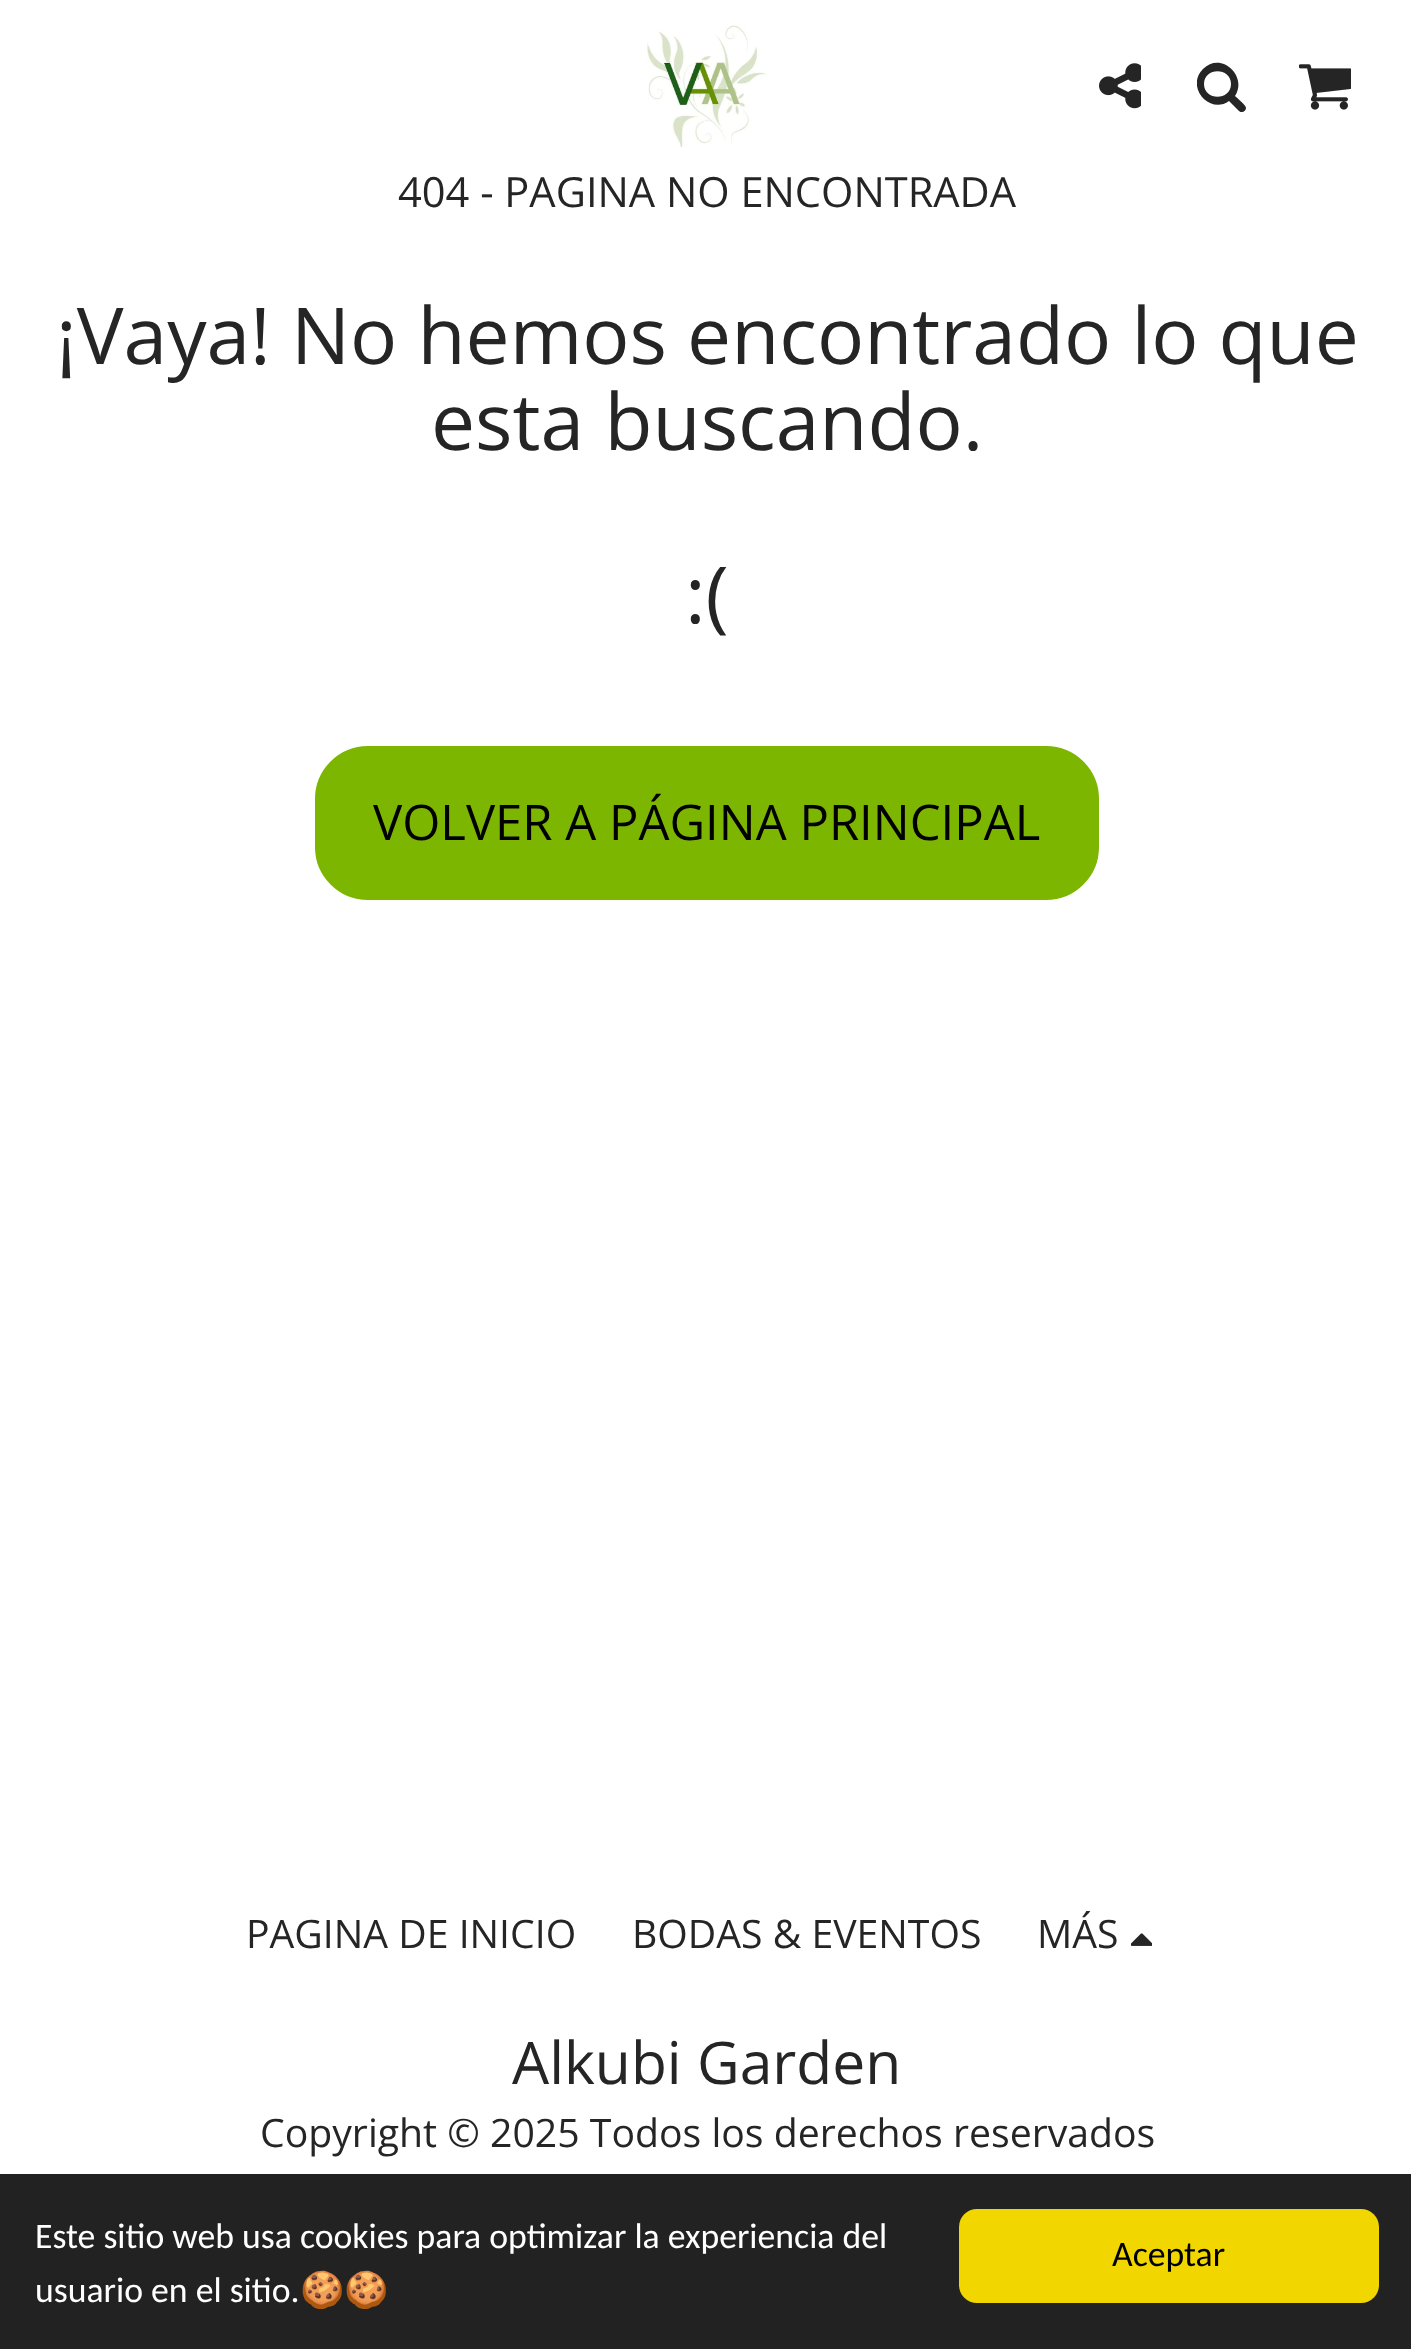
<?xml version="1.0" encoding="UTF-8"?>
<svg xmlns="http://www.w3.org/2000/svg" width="1411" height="2349">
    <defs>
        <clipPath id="clip1"><rect x="1197" y="60" width="49" height="52"/></clipPath>
    </defs>
    <rect width="100%" height="100%" fill="#FFFFFF"/>
    <text x="398" y="207" font-family="Open Sans" font-size="41.6" fill="#252525">404 - PÁGINA NO ENCONTRADA</text>
    <rect x="540" y="167" width="9" height="8" fill="#FFFFFF"/>
    <image x="647" y="25" width="120" height="122" href="img_01.png"/>
    <image x="1099" y="63" width="42" height="46" href="img_02.png"/>
    <g clip-path="url(#clip1)">
        <path d="M 1231 84 C 1231 67 1204 67 1204 84 C 1204 101 1231 101 1231 84 Z M 1246 108 C 1246 110 1244 112 1242 112 C 1241 112 1240 112 1239 111 L 1229 101 C 1210 115 1185 87 1203 69 C 1221 51 1248 76 1235 96 C 1237 98 1246 105 1246 108 Z" fill="#252525"/>
    </g>
    <image x="1299" y="64" width="52" height="46" href="img_03.png"/>
    <text x="56" y="364" word-spacing="-0.25" font-family="Open Sans" font-size="78.5" fill="#252525">¡Vaya! No hemos encontrado lo que</text>
    <text x="431" y="450" font-family="Open Sans" font-size="78.5" fill="#252525">esta buscando.</text>
    <text x="685" y="623" font-family="Open Sans" font-size="78.5" fill="#252525">:(</text>
    <rect x="317" y="748" width="780" height="150" rx="51" fill="#7CB600" stroke="#7CB600" stroke-width="4"/>
    <text x="373" y="840" font-family="Open Sans" font-size="49" fill="#000000">VOLVER A PÁGINA PRINCIPAL</text>
    <text x="246" y="1948" font-family="Open Sans" font-size="39.2" fill="#252525">PAGINA DE INICIO</text>
    <text x="632" y="1948" font-family="Open Sans" font-size="39.2" fill="#252525">BODAS &amp; EVENTOS</text>
    <text x="1037" y="1948" font-family="Open Sans" font-size="39.2" fill="#252525">MÁS</text>
    <image x="1131" y="1933" width="21" height="13" href="img_04.png"/>
    <text x="512" y="2084" font-family="Open Sans" font-size="58.75" fill="#252525">Alkubi Garden</text>
    <text x="260" y="2147" font-family="Open Sans" font-size="39.2" fill="#252525">Copyright © 2025 Todos los derechos reservados</text>
    <rect x="0" y="2174" width="1411" height="175" fill="#222222"/>
    <text font-family="Carlito" font-size="35.7" fill="#FFFFFF">
        <tspan x="35" y="2248">Este sitio web usa cookies para optimizar la experiencia del</tspan>
        <tspan x="35" y="2302">usuario en el sitio.</tspan>
    </text>
    <text x="300" y="2302" font-family="Noto Color Emoji" font-size="35.7" fill="#FFFFFF">🍪🍪</text>
    <rect x="959" y="2209" width="420" height="94" rx="18" fill="#F1D600"/>
    <text x="1112" y="2266" font-family="Carlito" font-size="35.7" fill="#000000">Aceptar</text>
</svg>
